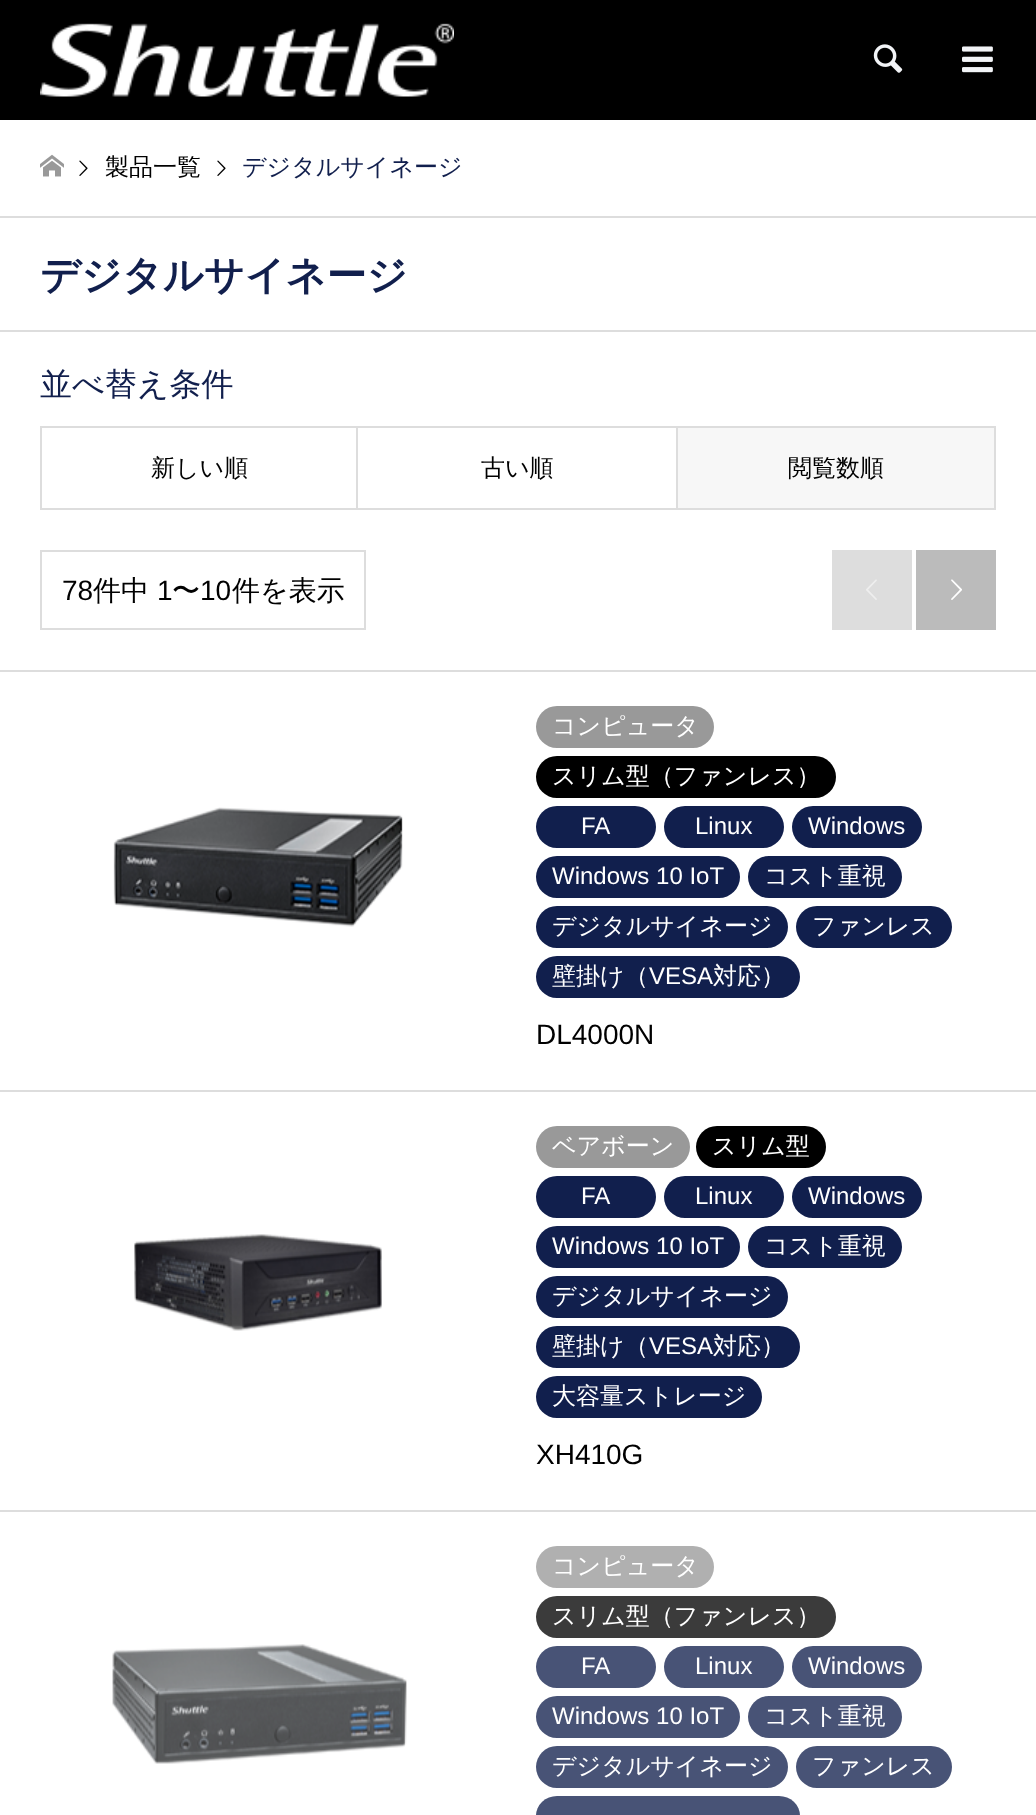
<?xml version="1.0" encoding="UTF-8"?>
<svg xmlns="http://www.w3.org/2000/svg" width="1036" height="1815">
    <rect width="100%" height="100%" fill="#FFFFFF"/>
    <rect x="0" y="0" width="1036" height="120" fill="#000000"/>
    <image x="40" y="23" width="414" height="74" href="img_01.png"/>
    <image x="873" y="44" width="30" height="29" href="img_02.png"/>
    <image x="962" y="46" width="31" height="27" href="img_03.png"/>
    <rect x="0" y="216" width="1036" height="2" fill="#DDDDDD"/>
    <image x="40" y="154" width="24" height="23" href="img_04.png"/>
    <image x="79" y="160" width="9" height="16" href="img_05.png"/>
    <text x="105" y="175" font-family="WenQuanYi Zen Hei" font-size="24" font-weight="500" fill="#000000">製品一覧</text>
    <image x="217" y="160" width="9" height="16" href="img_05.png"/>
    <text x="242" y="175" font-family="WenQuanYi Zen Hei" font-size="24" font-weight="500" fill="#111F4D">デジタルサイネージ</text>
    <rect x="0" y="330" width="1036" height="2" fill="#DDDDDD"/>
    <text x="40" y="289" font-family="WenQuanYi Zen Hei" font-size="40" font-weight="700" fill="#111F4D">デジタルサイネージ</text>
    <text x="40" y="395" font-family="WenQuanYi Zen Hei" font-size="32" font-weight="500" fill="#111F4D">並べ替え条件</text>
    <rect x="41" y="427" width="316" height="82" fill="none" stroke="#DDDDDD" stroke-width="2"/>
    <text x="151" y="476" font-family="WenQuanYi Zen Hei" font-size="24" font-weight="500" fill="#000000">新しい順</text>
    <rect x="358" y="426" width="638" height="2" fill="#DDDDDD"/>
    <rect x="676" y="426" width="2" height="84" fill="#DDDDDD"/>
    <rect x="358" y="508" width="320" height="2" fill="#DDDDDD"/>
    <text x="481" y="476" font-family="WenQuanYi Zen Hei" font-size="24" font-weight="500" fill="#000000">古い順</text>
    <rect x="678" y="428" width="316" height="80" fill="#F7F7F7"/>
    <rect x="994" y="426" width="2" height="84" fill="#DDDDDD"/>
    <rect x="678" y="508" width="318" height="2" fill="#DDDDDD"/>
    <text x="788" y="476" font-family="WenQuanYi Zen Hei" font-size="24" font-weight="500" fill="#000000">閲覧数順</text>
    <rect x="41" y="551" width="324" height="78" fill="none" stroke="#DDDDDD" stroke-width="2"/>
    <text x="62" y="600" font-family="Liberation Sans" font-size="28" fill="#000000">78</text>
    <text x="93" y="600" font-family="WenQuanYi Zen Hei" font-size="28" font-weight="500" fill="#000000">件中</text>
    <text x="157" y="600" font-family="Liberation Sans" font-size="28" fill="#000000">1</text>
    <text x="172" y="600" font-family="WenQuanYi Zen Hei" font-size="28" font-weight="500" fill="#000000">〜</text>
    <text x="200" y="600" font-family="Liberation Sans" font-size="28" fill="#000000">10</text>
    <text x="232" y="600" font-family="WenQuanYi Zen Hei" font-size="28" font-weight="500" fill="#000000">件を表示</text>
    <rect x="832" y="550" width="80" height="80" fill="#DDDDDD"/>
    <image x="866" y="579" width="11" height="21" href="img_06.png"/>
    <rect x="916" y="550" width="80" height="80" fill="#BBBBBB"/>
    <image x="951" y="579" width="11" height="21" href="img_07.png"/>
    <rect x="0" y="670" width="1036" height="2" fill="#DDDDDD"/>
    <rect x="0" y="1090" width="1036" height="2" fill="#DDDDDD"/>
    <image x="113" y="807" width="290" height="120" href="img_08.png"/>
    <rect x="536" y="706" width="178" height="42" rx="21" fill="#999999"/>
    <text x="552" y="734" font-family="WenQuanYi Zen Hei" font-size="24" font-weight="500" fill="#FFFFFF">コンピュータ</text>
    <rect x="536" y="756" width="300" height="42" rx="21" fill="#000000"/>
    <text x="552" y="784" font-family="WenQuanYi Zen Hei" font-size="24" font-weight="500" fill="#FFFFFF">スリム型（ファンレス）</text>
    <rect x="536" y="806" width="120" height="42" rx="21" fill="#111F4D"/>
    <text x="581" y="834" font-family="Liberation Sans" font-size="24" fill="#FFFFFF">FA</text>
    <rect x="664" y="806" width="120" height="42" rx="21" fill="#111F4D"/>
    <text x="695" y="834" font-family="Liberation Sans" font-size="24" fill="#FFFFFF">Linux</text>
    <rect x="792" y="806" width="130" height="42" rx="21" fill="#111F4D"/>
    <text x="808" y="834" font-family="Liberation Sans" font-size="24" fill="#FFFFFF">Windows</text>
    <rect x="536" y="856" width="204" height="42" rx="21" fill="#111F4D"/>
    <text x="552" y="884" font-family="Liberation Sans" font-size="24" fill="#FFFFFF">Windows 10 IoT</text>
    <rect x="748" y="856" width="154" height="42" rx="21" fill="#111F4D"/>
    <text x="764" y="884" font-family="WenQuanYi Zen Hei" font-size="24" font-weight="500" fill="#FFFFFF">コスト重視</text>
    <rect x="536" y="906" width="252" height="42" rx="21" fill="#111F4D"/>
    <text x="552" y="934" font-family="WenQuanYi Zen Hei" font-size="24" font-weight="500" fill="#FFFFFF">デジタルサイネージ</text>
    <rect x="796" y="906" width="156" height="42" rx="21" fill="#111F4D"/>
    <text x="812" y="934" font-family="WenQuanYi Zen Hei" font-size="24" font-weight="500" fill="#FFFFFF">ファンレス</text>
    <rect x="536" y="956" width="264" height="42" rx="21" fill="#111F4D"/>
    <text x="552" y="984" font-family="WenQuanYi Zen Hei" font-size="24" font-weight="500" fill="#FFFFFF">壁掛け（</text>
    <text x="649" y="984" font-family="Liberation Sans" font-size="24" fill="#FFFFFF">VESA</text>
    <text x="713" y="984" font-family="WenQuanYi Zen Hei" font-size="24" font-weight="500" fill="#FFFFFF">対応）</text>
    <text x="536" y="1044" font-family="Liberation Sans" font-size="28" fill="#000000">DL4000N</text>
    <rect x="0" y="1510" width="1036" height="2" fill="#DDDDDD"/>
    <image x="134" y="1234" width="248" height="97" href="img_09.png"/>
    <rect x="536" y="1126" width="154" height="42" rx="21" fill="#999999"/>
    <text x="552" y="1154" font-family="WenQuanYi Zen Hei" font-size="24" font-weight="500" fill="#FFFFFF">ベアボーン</text>
    <rect x="696" y="1126" width="130" height="42" rx="21" fill="#000000"/>
    <text x="712" y="1154" font-family="WenQuanYi Zen Hei" font-size="24" font-weight="500" fill="#FFFFFF">スリム型</text>
    <rect x="536" y="1176" width="120" height="42" rx="21" fill="#111F4D"/>
    <text x="581" y="1204" font-family="Liberation Sans" font-size="24" fill="#FFFFFF">FA</text>
    <rect x="664" y="1176" width="120" height="42" rx="21" fill="#111F4D"/>
    <text x="695" y="1204" font-family="Liberation Sans" font-size="24" fill="#FFFFFF">Linux</text>
    <rect x="792" y="1176" width="130" height="42" rx="21" fill="#111F4D"/>
    <text x="808" y="1204" font-family="Liberation Sans" font-size="24" fill="#FFFFFF">Windows</text>
    <rect x="536" y="1226" width="204" height="42" rx="21" fill="#111F4D"/>
    <text x="552" y="1254" font-family="Liberation Sans" font-size="24" fill="#FFFFFF">Windows 10 IoT</text>
    <rect x="748" y="1226" width="154" height="42" rx="21" fill="#111F4D"/>
    <text x="764" y="1254" font-family="WenQuanYi Zen Hei" font-size="24" font-weight="500" fill="#FFFFFF">コスト重視</text>
    <rect x="536" y="1276" width="252" height="42" rx="21" fill="#111F4D"/>
    <text x="552" y="1304" font-family="WenQuanYi Zen Hei" font-size="24" font-weight="500" fill="#FFFFFF">デジタルサイネージ</text>
    <rect x="536" y="1326" width="264" height="42" rx="21" fill="#111F4D"/>
    <text x="552" y="1354" font-family="WenQuanYi Zen Hei" font-size="24" font-weight="500" fill="#FFFFFF">壁掛け（</text>
    <text x="649" y="1354" font-family="Liberation Sans" font-size="24" fill="#FFFFFF">VESA</text>
    <text x="713" y="1354" font-family="WenQuanYi Zen Hei" font-size="24" font-weight="500" fill="#FFFFFF">対応）</text>
    <rect x="536" y="1376" width="226" height="42" rx="21" fill="#111F4D"/>
    <text x="552" y="1404" font-family="WenQuanYi Zen Hei" font-size="24" font-weight="500" fill="#FFFFFF">大容量ストレージ</text>
    <text x="536" y="1464" font-family="Liberation Sans" font-size="28" fill="#000000">XH410G</text>
    <image x="112" y="1644" width="295" height="120" href="img_10.png"/>
    <rect x="536" y="1546" width="178" height="42" rx="21" fill="#B0B0B0"/>
    <text x="552" y="1574" font-family="WenQuanYi Zen Hei" font-size="24" font-weight="500" fill="#FFFFFF">コンピュータ</text>
    <rect x="536" y="1596" width="300" height="42" rx="21" fill="#3B3B3B"/>
    <text x="552" y="1624" font-family="WenQuanYi Zen Hei" font-size="24" font-weight="500" fill="#FFFFFF">スリム型（ファンレス）</text>
    <rect x="536" y="1646" width="120" height="42" rx="21" fill="#485376"/>
    <text x="581" y="1674" font-family="Liberation Sans" font-size="24" fill="#FFFFFF">FA</text>
    <rect x="664" y="1646" width="120" height="42" rx="21" fill="#485376"/>
    <text x="695" y="1674" font-family="Liberation Sans" font-size="24" fill="#FFFFFF">Linux</text>
    <rect x="792" y="1646" width="130" height="42" rx="21" fill="#485376"/>
    <text x="808" y="1674" font-family="Liberation Sans" font-size="24" fill="#FFFFFF">Windows</text>
    <rect x="536" y="1696" width="204" height="42" rx="21" fill="#485376"/>
    <text x="552" y="1724" font-family="Liberation Sans" font-size="24" fill="#FFFFFF">Windows 10 IoT</text>
    <rect x="748" y="1696" width="154" height="42" rx="21" fill="#485376"/>
    <text x="764" y="1724" font-family="WenQuanYi Zen Hei" font-size="24" font-weight="500" fill="#FFFFFF">コスト重視</text>
    <rect x="536" y="1746" width="252" height="42" rx="21" fill="#485376"/>
    <text x="552" y="1774" font-family="WenQuanYi Zen Hei" font-size="24" font-weight="500" fill="#FFFFFF">デジタルサイネージ</text>
    <rect x="796" y="1746" width="156" height="42" rx="21" fill="#485376"/>
    <text x="812" y="1774" font-family="WenQuanYi Zen Hei" font-size="24" font-weight="500" fill="#FFFFFF">ファンレス</text>
    <rect x="536" y="1796" width="264" height="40" rx="21" fill="#485376"/>
</svg>
